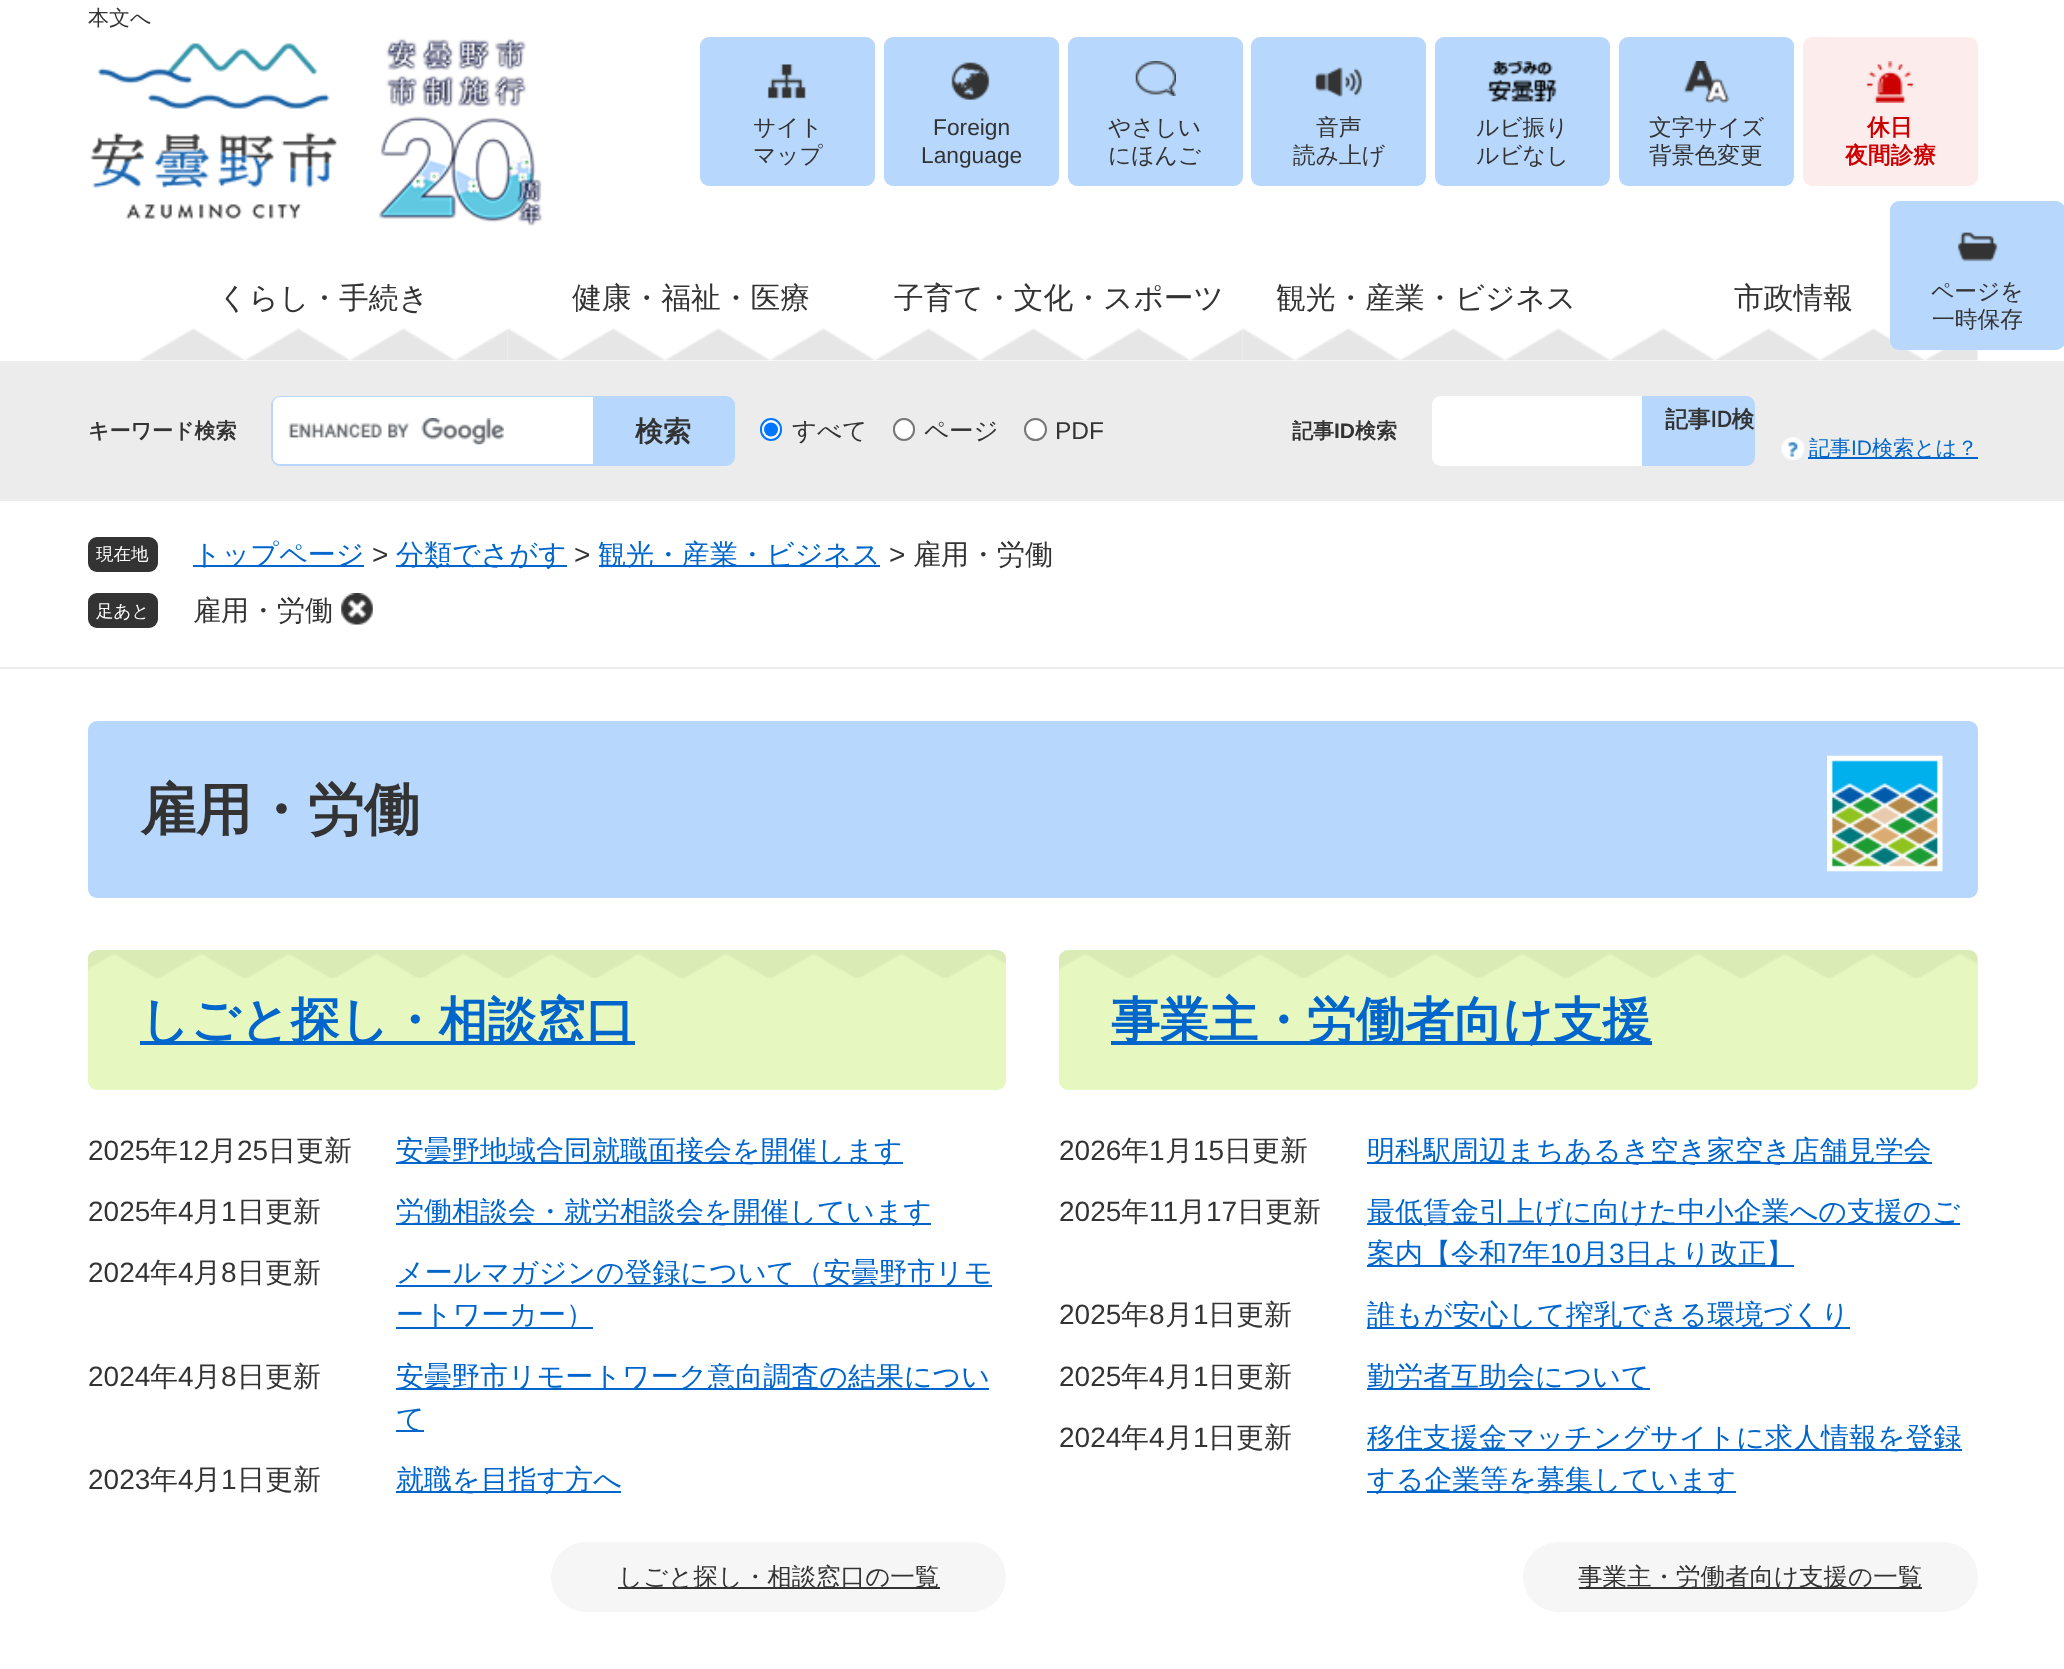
<?xml version="1.0" encoding="UTF-8"?>
<svg xmlns="http://www.w3.org/2000/svg" width="2064" height="1669">
    <rect width="100%" height="100%" fill="#FFFFFF"/>
    <text x="88" y="25" font-family="WenQuanYi Zen Hei" font-size="21" font-weight="500" fill="#333333">本文へ</text>
    <image x="90" y="38" width="453" height="188" href="img_01.png"/>
    <rect x="700" y="37" width="175" height="149" rx="9" fill="#B7D8FC"/>
    <image x="767" y="64" width="39" height="35" href="img_02.png"/>
    <text font-family="WenQuanYi Zen Hei" font-size="22.75" font-weight="500" fill="#333333">
        <tspan x="753" y="135">サイト</tspan>
        <tspan x="753" y="163">マップ</tspan>
    </text>
    <rect x="884" y="37" width="175" height="149" rx="9" fill="#B7D8FC"/>
    <image x="951" y="62" width="39" height="38" href="img_03.png"/>
    <text x="933" y="135" font-family="Liberation Sans" font-size="22.75" fill="#333333">Foreign</text>
    <text x="921" y="163" font-family="Liberation Sans" font-size="22.75" fill="#333333">Language</text>
    <rect x="1068" y="37" width="175" height="149" rx="9" fill="#B7D8FC"/>
    <image x="1135" y="61" width="41" height="35" href="img_04.png"/>
    <text font-family="WenQuanYi Zen Hei" font-size="22.75" font-weight="500" fill="#333333">
        <tspan x="1108" y="135">やさしい</tspan>
        <tspan x="1108" y="163">にほんご</tspan>
    </text>
    <rect x="1251" y="37" width="175" height="149" rx="9" fill="#B7D8FC"/>
    <image x="1315" y="67" width="47" height="30" href="img_05.png"/>
    <text x="1316" y="135" font-family="WenQuanYi Zen Hei" font-size="22.75" font-weight="500" fill="#333333">音声</text>
    <text x="1293" y="163" font-family="WenQuanYi Zen Hei" font-size="22.75" font-weight="500" fill="#333333">読み上げ</text>
    <rect x="1435" y="37" width="175" height="149" rx="9" fill="#B7D8FC"/>
    <image x="1487" y="61" width="70" height="42" href="img_06.png"/>
    <text font-family="WenQuanYi Zen Hei" font-size="22.75" font-weight="500" fill="#333333">
        <tspan x="1476" y="135">ルビ振り</tspan>
        <tspan x="1476" y="163">ルビなし</tspan>
    </text>
    <rect x="1619" y="37" width="175" height="149" rx="9" fill="#B7D8FC"/>
    <image x="1683" y="61" width="47" height="42" href="img_07.png"/>
    <text font-family="WenQuanYi Zen Hei" font-size="22.75" font-weight="500" fill="#333333">
        <tspan x="1649" y="135">文字サイズ</tspan>
        <tspan x="1649" y="163">背景色変更</tspan>
    </text>
    <rect x="1803" y="37" width="175" height="149" rx="9" fill="#FCECEC"/>
    <image x="1866" y="61" width="48" height="42" href="img_08.png"/>
    <text x="1867" y="135" font-family="WenQuanYi Zen Hei" font-size="22.75" font-weight="700" fill="#CC0000">休日</text>
    <text x="1845" y="163" font-family="WenQuanYi Zen Hei" font-size="22.75" font-weight="700" fill="#CC0000">夜間診療</text>
    <image x="1610" y="328" width="368" height="33" href="img_14.png"/>
    <rect x="1890" y="201" width="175" height="149" rx="9" fill="#B7D8FC"/>
    <image x="1957" y="232" width="41" height="30" href="img_09.png"/>
    <text x="1931" y="299" font-family="WenQuanYi Zen Hei" font-size="22.75" font-weight="500" fill="#333333">ページを</text>
    <text x="1932" y="327" font-family="WenQuanYi Zen Hei" font-size="22.75" font-weight="500" fill="#333333">一時保存</text>
    <image x="140" y="328" width="368" height="33" href="img_10.png"/>
    <text x="218" y="308" font-family="WenQuanYi Zen Hei" font-size="29.75" font-weight="500" fill="#333333">くらし・手続き</text>
    <image x="507" y="328" width="368" height="33" href="img_11.png"/>
    <text x="572" y="308" font-family="WenQuanYi Zen Hei" font-size="29.75" font-weight="500" fill="#333333">健康・福祉・医療</text>
    <image x="875" y="328" width="368" height="33" href="img_12.png"/>
    <text x="894" y="308" font-family="WenQuanYi Zen Hei" font-size="29.75" font-weight="500" fill="#333333">子育て・文化・スポーツ</text>
    <image x="1242" y="328" width="368" height="33" href="img_13.png"/>
    <text x="1276" y="308" font-family="WenQuanYi Zen Hei" font-size="29.75" font-weight="500" fill="#333333">観光・産業・ビジネス</text>
    <text x="1734" y="308" font-family="WenQuanYi Zen Hei" font-size="29.75" font-weight="500" fill="#333333">市政情報</text>
    <rect x="0" y="361" width="2064" height="140" fill="#ECECEC"/>
    <text x="88" y="438" font-family="WenQuanYi Zen Hei" font-size="21" font-weight="700" fill="#333333">キーワード検索</text>
    <rect x="272" y="397" width="462" height="68" rx="8" fill="none" stroke="#B7D8FC" stroke-width="2"/>
    <path d="M 280 397 H 593 V 464 H 280 C 276 464 273 461 273 457 V 404 C 273 400 276 397 280 397 Z" fill="#FFFFFF"/>
    <image x="288" y="418" width="216" height="27" href="img_15.png"/>
    <path d="M 593 397 H 726 C 730 397 733 400 733 404 V 457 C 733 461 730 464 726 464 H 593 Z" fill="#B7D8FC"/>
    <text x="635" y="441" font-family="WenQuanYi Zen Hei" font-size="28" font-weight="700" fill="#333333">検索</text>
    <rect x="761" y="419" width="20" height="21" rx="10" fill="#FFFFFF" stroke="#0075FF" stroke-width="2"/>
    <circle cx="771" cy="429.5" r="7" fill="#0075FF"/>
    <text x="792" y="439" font-family="WenQuanYi Zen Hei" font-size="24.5" font-weight="500" fill="#333333">すべて</text>
    <rect x="894" y="419" width="20" height="21" rx="10" fill="#FFFFFF" stroke="#767676" stroke-width="2"/>
    <text x="924" y="439" font-family="WenQuanYi Zen Hei" font-size="24.5" font-weight="500" fill="#333333">ページ</text>
    <circle cx="1035.5" cy="429.5" r="10.5" fill="#FFFFFF" stroke="#767676" stroke-width="2"/>
    <text x="1055" y="439" font-family="Liberation Sans" font-size="24.5" fill="#333333">PDF</text>
    <text x="1292" y="438" font-family="WenQuanYi Zen Hei" font-size="21" font-weight="700" fill="#333333">記事</text>
    <text x="1334" y="438" font-family="Liberation Sans" font-size="21" font-weight="700" fill="#333333">ID</text>
    <text x="1355" y="438" font-family="WenQuanYi Zen Hei" font-size="21" font-weight="700" fill="#333333">検索</text>
    <path d="M 1441 396 H 1642 V 466 H 1441 C 1436 466 1432 462 1432 457 V 405 C 1432 400 1436 396 1441 396 Z" fill="#FFFFFF"/>
    <path d="M 1642 396 H 1746 C 1751 396 1755 400 1755 405 V 457 C 1755 462 1751 466 1746 466 H 1642 Z" fill="#B7D8FC"/>
    <text x="1665" y="427" font-family="WenQuanYi Zen Hei" font-size="22.75" font-weight="700" fill="#333333">記事ID検</text>
    <image x="1781" y="437" width="24" height="23" href="img_16.png"/>
    <rect x="1808" y="457" width="170" height="2" fill="#0066CC"/>
    <text x="1809" y="455" font-family="WenQuanYi Zen Hei" font-size="21" font-weight="500" fill="#0066CC">記事</text>
    <text x="1851" y="455" font-family="Liberation Sans" font-size="21" fill="#0066CC">ID</text>
    <text x="1872" y="455" font-family="WenQuanYi Zen Hei" font-size="21" font-weight="500" fill="#0066CC">検索とは？</text>
    <rect x="0" y="667" width="2064" height="2" fill="#ECECEC"/>
    <rect x="88" y="537" width="70" height="35" rx="9" fill="#333333"/>
    <text x="96" y="560" font-family="WenQuanYi Zen Hei" font-size="17.5" font-weight="500" fill="#FFFFFF">現在地</text>
    <rect x="193" y="565" width="171" height="2" fill="#0066CC"/>
    <text x="193" y="564" font-family="WenQuanYi Zen Hei" font-size="28" font-weight="500" fill="#0066CC">トップページ</text>
    <text x="372" y="564" font-family="Liberation Sans" font-size="28" fill="#333333">&gt;</text>
    <rect x="396" y="565" width="171" height="2" fill="#0066CC"/>
    <text x="396" y="564" font-family="WenQuanYi Zen Hei" font-size="28" font-weight="500" fill="#0066CC">分類でさがす</text>
    <text x="574" y="564" font-family="Liberation Sans" font-size="28" fill="#333333">&gt;</text>
    <rect x="599" y="565" width="281" height="2" fill="#0066CC"/>
    <text x="598" y="564" font-family="WenQuanYi Zen Hei" font-size="28" font-weight="500" fill="#0066CC">観光・産業・ビジネス</text>
    <text x="889" y="564" font-family="Liberation Sans" font-size="28" fill="#333333">&gt;</text>
    <text x="913" y="564" font-family="WenQuanYi Zen Hei" font-size="28" font-weight="500" fill="#333333">雇用・労働</text>
    <rect x="88" y="593" width="70" height="35" rx="9" fill="#333333"/>
    <text x="96" y="617" font-family="WenQuanYi Zen Hei" font-size="17.5" font-weight="500" fill="#FFFFFF">足あと</text>
    <text x="193" y="620" font-family="WenQuanYi Zen Hei" font-size="28" font-weight="500" fill="#333333">雇用・労働</text>
    <image x="341" y="593" width="32" height="32" href="img_17.png"/>
    <rect x="88" y="721" width="1890" height="177" rx="9" fill="#B7D8FC"/>
    <image x="1827" y="755" width="116" height="117" href="img_18.png"/>
    <text x="140" y="829" font-family="WenQuanYi Zen Hei" font-size="56" font-weight="700" fill="#333333">雇用・労働</text>
    <rect x="88" y="950" width="918" height="140" rx="9" fill="#E6F8BF"/>
    <image x="88" y="950" width="918" height="28" href="img_19.png"/>
    <rect x="140" y="1041" width="495" height="4" fill="#0066CC"/>
    <text x="140" y="1037" font-family="WenQuanYi Zen Hei" font-size="49" font-weight="700" fill="#0066CC">しごと探し・相談窓口</text>
    <text x="88" y="1160" font-family="Liberation Sans" font-size="28" fill="#333333">2025</text>
    <text x="150" y="1160" font-family="WenQuanYi Zen Hei" font-size="28" font-weight="500" fill="#333333">年</text>
    <text x="178" y="1160" font-family="Liberation Sans" font-size="28" fill="#333333">12</text>
    <text x="209" y="1160" font-family="WenQuanYi Zen Hei" font-size="28" font-weight="500" fill="#333333">月</text>
    <text x="237" y="1160" font-family="Liberation Sans" font-size="28" fill="#333333">25</text>
    <text x="268" y="1160" font-family="WenQuanYi Zen Hei" font-size="28" font-weight="500" fill="#333333">日更新</text>
    <rect x="396" y="1162" width="507" height="2" fill="#0066CC"/>
    <text x="396" y="1160" font-family="WenQuanYi Zen Hei" font-size="28" font-weight="500" fill="#0066CC">安曇野地域合同就職面接会を開催します</text>
    <text x="88" y="1221" font-family="Liberation Sans" font-size="28" fill="#333333">2025</text>
    <text x="150" y="1221" font-family="WenQuanYi Zen Hei" font-size="28" font-weight="500" fill="#333333">年</text>
    <text x="178" y="1221" font-family="Liberation Sans" font-size="28" fill="#333333">4</text>
    <text x="193" y="1221" font-family="WenQuanYi Zen Hei" font-size="28" font-weight="500" fill="#333333">月</text>
    <text x="221" y="1221" font-family="Liberation Sans" font-size="28" fill="#333333">1</text>
    <text x="237" y="1221" font-family="WenQuanYi Zen Hei" font-size="28" font-weight="500" fill="#333333">日更新</text>
    <rect x="396" y="1223" width="535" height="2" fill="#0066CC"/>
    <text x="396" y="1221" font-family="WenQuanYi Zen Hei" font-size="28" font-weight="500" fill="#0066CC">労働相談会・就労相談会を開催しています</text>
    <text x="88" y="1282" font-family="Liberation Sans" font-size="28" fill="#333333">2024</text>
    <text x="150" y="1282" font-family="WenQuanYi Zen Hei" font-size="28" font-weight="500" fill="#333333">年</text>
    <text x="178" y="1282" font-family="Liberation Sans" font-size="28" fill="#333333">4</text>
    <text x="193" y="1282" font-family="WenQuanYi Zen Hei" font-size="28" font-weight="500" fill="#333333">月</text>
    <text x="221" y="1282" font-family="Liberation Sans" font-size="28" fill="#333333">8</text>
    <text x="237" y="1282" font-family="WenQuanYi Zen Hei" font-size="28" font-weight="500" fill="#333333">日更新</text>
    <rect x="396" y="1285" width="596" height="2" fill="#0066CC"/>
    <text x="396" y="1282" font-family="WenQuanYi Zen Hei" font-size="28" font-weight="500" fill="#0066CC">メールマガジンの登録について（安曇野市リモ</text>
    <rect x="396" y="1327" width="197" height="2" fill="#0066CC"/>
    <text x="396" y="1324" font-family="WenQuanYi Zen Hei" font-size="28" font-weight="500" fill="#0066CC">ートワーカー）</text>
    <text x="88" y="1386" font-family="Liberation Sans" font-size="28" fill="#333333">2024</text>
    <text x="150" y="1386" font-family="WenQuanYi Zen Hei" font-size="28" font-weight="500" fill="#333333">年</text>
    <text x="178" y="1386" font-family="Liberation Sans" font-size="28" fill="#333333">4</text>
    <text x="193" y="1386" font-family="WenQuanYi Zen Hei" font-size="28" font-weight="500" fill="#333333">月</text>
    <text x="221" y="1386" font-family="Liberation Sans" font-size="28" fill="#333333">8</text>
    <text x="237" y="1386" font-family="WenQuanYi Zen Hei" font-size="28" font-weight="500" fill="#333333">日更新</text>
    <rect x="396" y="1388" width="593" height="2" fill="#0066CC"/>
    <text x="396" y="1386" font-family="WenQuanYi Zen Hei" font-size="28" font-weight="500" fill="#0066CC">安曇野市リモートワーク意向調査の結果につい</text>
    <rect x="396" y="1430" width="28" height="2" fill="#0066CC"/>
    <text x="396" y="1428" font-family="WenQuanYi Zen Hei" font-size="28" font-weight="500" fill="#0066CC">て</text>
    <text x="88" y="1489" font-family="Liberation Sans" font-size="28" fill="#333333">2023</text>
    <text x="150" y="1489" font-family="WenQuanYi Zen Hei" font-size="28" font-weight="500" fill="#333333">年</text>
    <text x="178" y="1489" font-family="Liberation Sans" font-size="28" fill="#333333">4</text>
    <text x="193" y="1489" font-family="WenQuanYi Zen Hei" font-size="28" font-weight="500" fill="#333333">月</text>
    <text x="221" y="1489" font-family="Liberation Sans" font-size="28" fill="#333333">1</text>
    <text x="237" y="1489" font-family="WenQuanYi Zen Hei" font-size="28" font-weight="500" fill="#333333">日更新</text>
    <rect x="396" y="1491" width="225" height="2" fill="#0066CC"/>
    <text x="396" y="1489" font-family="WenQuanYi Zen Hei" font-size="28" font-weight="500" fill="#0066CC">就職を目指す方へ</text>
    <rect x="551" y="1542" width="455" height="70" rx="35" fill="#F6F6F6"/>
    <rect x="618" y="1587" width="322" height="2" fill="#333333"/>
    <text x="618" y="1585" font-family="WenQuanYi Zen Hei" font-size="24.5" font-weight="500" fill="#333333">しごと探し・相談窓口の一覧</text>
    <rect x="1059" y="950" width="919" height="140" rx="9" fill="#E6F8BF"/>
    <image x="1059" y="950" width="918" height="28" href="img_20.png"/>
    <rect x="1111" y="1041" width="541" height="4" fill="#0066CC"/>
    <text x="1111" y="1037" font-family="WenQuanYi Zen Hei" font-size="49" font-weight="700" fill="#0066CC">事業主・労働者向け支援</text>
    <text x="1059" y="1160" font-family="Liberation Sans" font-size="28" fill="#333333">2026</text>
    <text x="1121" y="1160" font-family="WenQuanYi Zen Hei" font-size="28" font-weight="500" fill="#333333">年</text>
    <text x="1149" y="1160" font-family="Liberation Sans" font-size="28" fill="#333333">1</text>
    <text x="1165" y="1160" font-family="WenQuanYi Zen Hei" font-size="28" font-weight="500" fill="#333333">月</text>
    <text x="1193" y="1160" font-family="Liberation Sans" font-size="28" fill="#333333">15</text>
    <text x="1224" y="1160" font-family="WenQuanYi Zen Hei" font-size="28" font-weight="500" fill="#333333">日更新</text>
    <rect x="1367" y="1162" width="565" height="2" fill="#0066CC"/>
    <text x="1367" y="1160" font-family="WenQuanYi Zen Hei" font-size="28" font-weight="500" fill="#0066CC">明科駅周辺まちあるき空き家空き店舗見学会</text>
    <text x="1059" y="1221" font-family="Liberation Sans" font-size="28" fill="#333333">2025</text>
    <text x="1121" y="1221" font-family="WenQuanYi Zen Hei" font-size="28" font-weight="500" fill="#333333">年</text>
    <text x="1149" y="1221" font-family="Liberation Sans" font-size="28" fill="#333333">11</text>
    <text x="1178" y="1221" font-family="WenQuanYi Zen Hei" font-size="28" font-weight="500" fill="#333333">月</text>
    <text x="1206" y="1221" font-family="Liberation Sans" font-size="28" fill="#333333">17</text>
    <text x="1237" y="1221" font-family="WenQuanYi Zen Hei" font-size="28" font-weight="500" fill="#333333">日更新</text>
    <rect x="1367" y="1223" width="593" height="2" fill="#0066CC"/>
    <text x="1367" y="1221" font-family="WenQuanYi Zen Hei" font-size="28" font-weight="500" fill="#0066CC">最低賃金引上げに向けた中小企業への支援のご</text>
    <rect x="1367" y="1265" width="427" height="2" fill="#0066CC"/>
    <text x="1367" y="1263" font-family="WenQuanYi Zen Hei" font-size="28" font-weight="500" fill="#0066CC">案内【令和</text>
    <text x="1507" y="1263" font-family="Liberation Sans" font-size="28" fill="#0066CC">7</text>
    <text x="1522" y="1263" font-family="WenQuanYi Zen Hei" font-size="28" font-weight="500" fill="#0066CC">年</text>
    <text x="1550" y="1263" font-family="Liberation Sans" font-size="28" fill="#0066CC">10</text>
    <text x="1581" y="1263" font-family="WenQuanYi Zen Hei" font-size="28" font-weight="500" fill="#0066CC">月</text>
    <text x="1609" y="1263" font-family="Liberation Sans" font-size="28" fill="#0066CC">3</text>
    <text x="1625" y="1263" font-family="WenQuanYi Zen Hei" font-size="28" font-weight="500" fill="#0066CC">日より改正】</text>
    <text x="1059" y="1324" font-family="Liberation Sans" font-size="28" fill="#333333">2025</text>
    <text x="1121" y="1324" font-family="WenQuanYi Zen Hei" font-size="28" font-weight="500" fill="#333333">年</text>
    <text x="1149" y="1324" font-family="Liberation Sans" font-size="28" fill="#333333">8</text>
    <text x="1165" y="1324" font-family="WenQuanYi Zen Hei" font-size="28" font-weight="500" fill="#333333">月</text>
    <text x="1193" y="1324" font-family="Liberation Sans" font-size="28" fill="#333333">1</text>
    <text x="1208" y="1324" font-family="WenQuanYi Zen Hei" font-size="28" font-weight="500" fill="#333333">日更新</text>
    <rect x="1367" y="1327" width="483" height="2" fill="#0066CC"/>
    <text x="1367" y="1324" font-family="WenQuanYi Zen Hei" font-size="28" font-weight="500" fill="#0066CC">誰もが安心して搾乳できる環境づくり</text>
    <text x="1059" y="1386" font-family="Liberation Sans" font-size="28" fill="#333333">2025</text>
    <text x="1121" y="1386" font-family="WenQuanYi Zen Hei" font-size="28" font-weight="500" fill="#333333">年</text>
    <text x="1149" y="1386" font-family="Liberation Sans" font-size="28" fill="#333333">4</text>
    <text x="1165" y="1386" font-family="WenQuanYi Zen Hei" font-size="28" font-weight="500" fill="#333333">月</text>
    <text x="1193" y="1386" font-family="Liberation Sans" font-size="28" fill="#333333">1</text>
    <text x="1208" y="1386" font-family="WenQuanYi Zen Hei" font-size="28" font-weight="500" fill="#333333">日更新</text>
    <rect x="1367" y="1388" width="283" height="2" fill="#0066CC"/>
    <text x="1367" y="1386" font-family="WenQuanYi Zen Hei" font-size="28" font-weight="500" fill="#0066CC">勤労者互助会について</text>
    <text x="1059" y="1447" font-family="Liberation Sans" font-size="28" fill="#333333">2024</text>
    <text x="1121" y="1447" font-family="WenQuanYi Zen Hei" font-size="28" font-weight="500" fill="#333333">年</text>
    <text x="1149" y="1447" font-family="Liberation Sans" font-size="28" fill="#333333">4</text>
    <text x="1165" y="1447" font-family="WenQuanYi Zen Hei" font-size="28" font-weight="500" fill="#333333">月</text>
    <text x="1193" y="1447" font-family="Liberation Sans" font-size="28" fill="#333333">1</text>
    <text x="1208" y="1447" font-family="WenQuanYi Zen Hei" font-size="28" font-weight="500" fill="#333333">日更新</text>
    <rect x="1367" y="1449" width="595" height="2" fill="#0066CC"/>
    <text x="1367" y="1447" font-family="WenQuanYi Zen Hei" font-size="28" font-weight="500" fill="#0066CC">移住支援金マッチングサイトに求人情報を登録</text>
    <rect x="1367" y="1491" width="369" height="2" fill="#0066CC"/>
    <text x="1367" y="1489" font-family="WenQuanYi Zen Hei" font-size="28" font-weight="500" fill="#0066CC">する企業等を募集しています</text>
    <rect x="1523" y="1542" width="455" height="70" rx="35" fill="#F6F6F6"/>
    <rect x="1579" y="1587" width="343" height="2" fill="#333333"/>
    <text x="1578" y="1585" font-family="WenQuanYi Zen Hei" font-size="24.5" font-weight="500" fill="#333333">事業主・労働者向け支援の一覧</text>
</svg>
